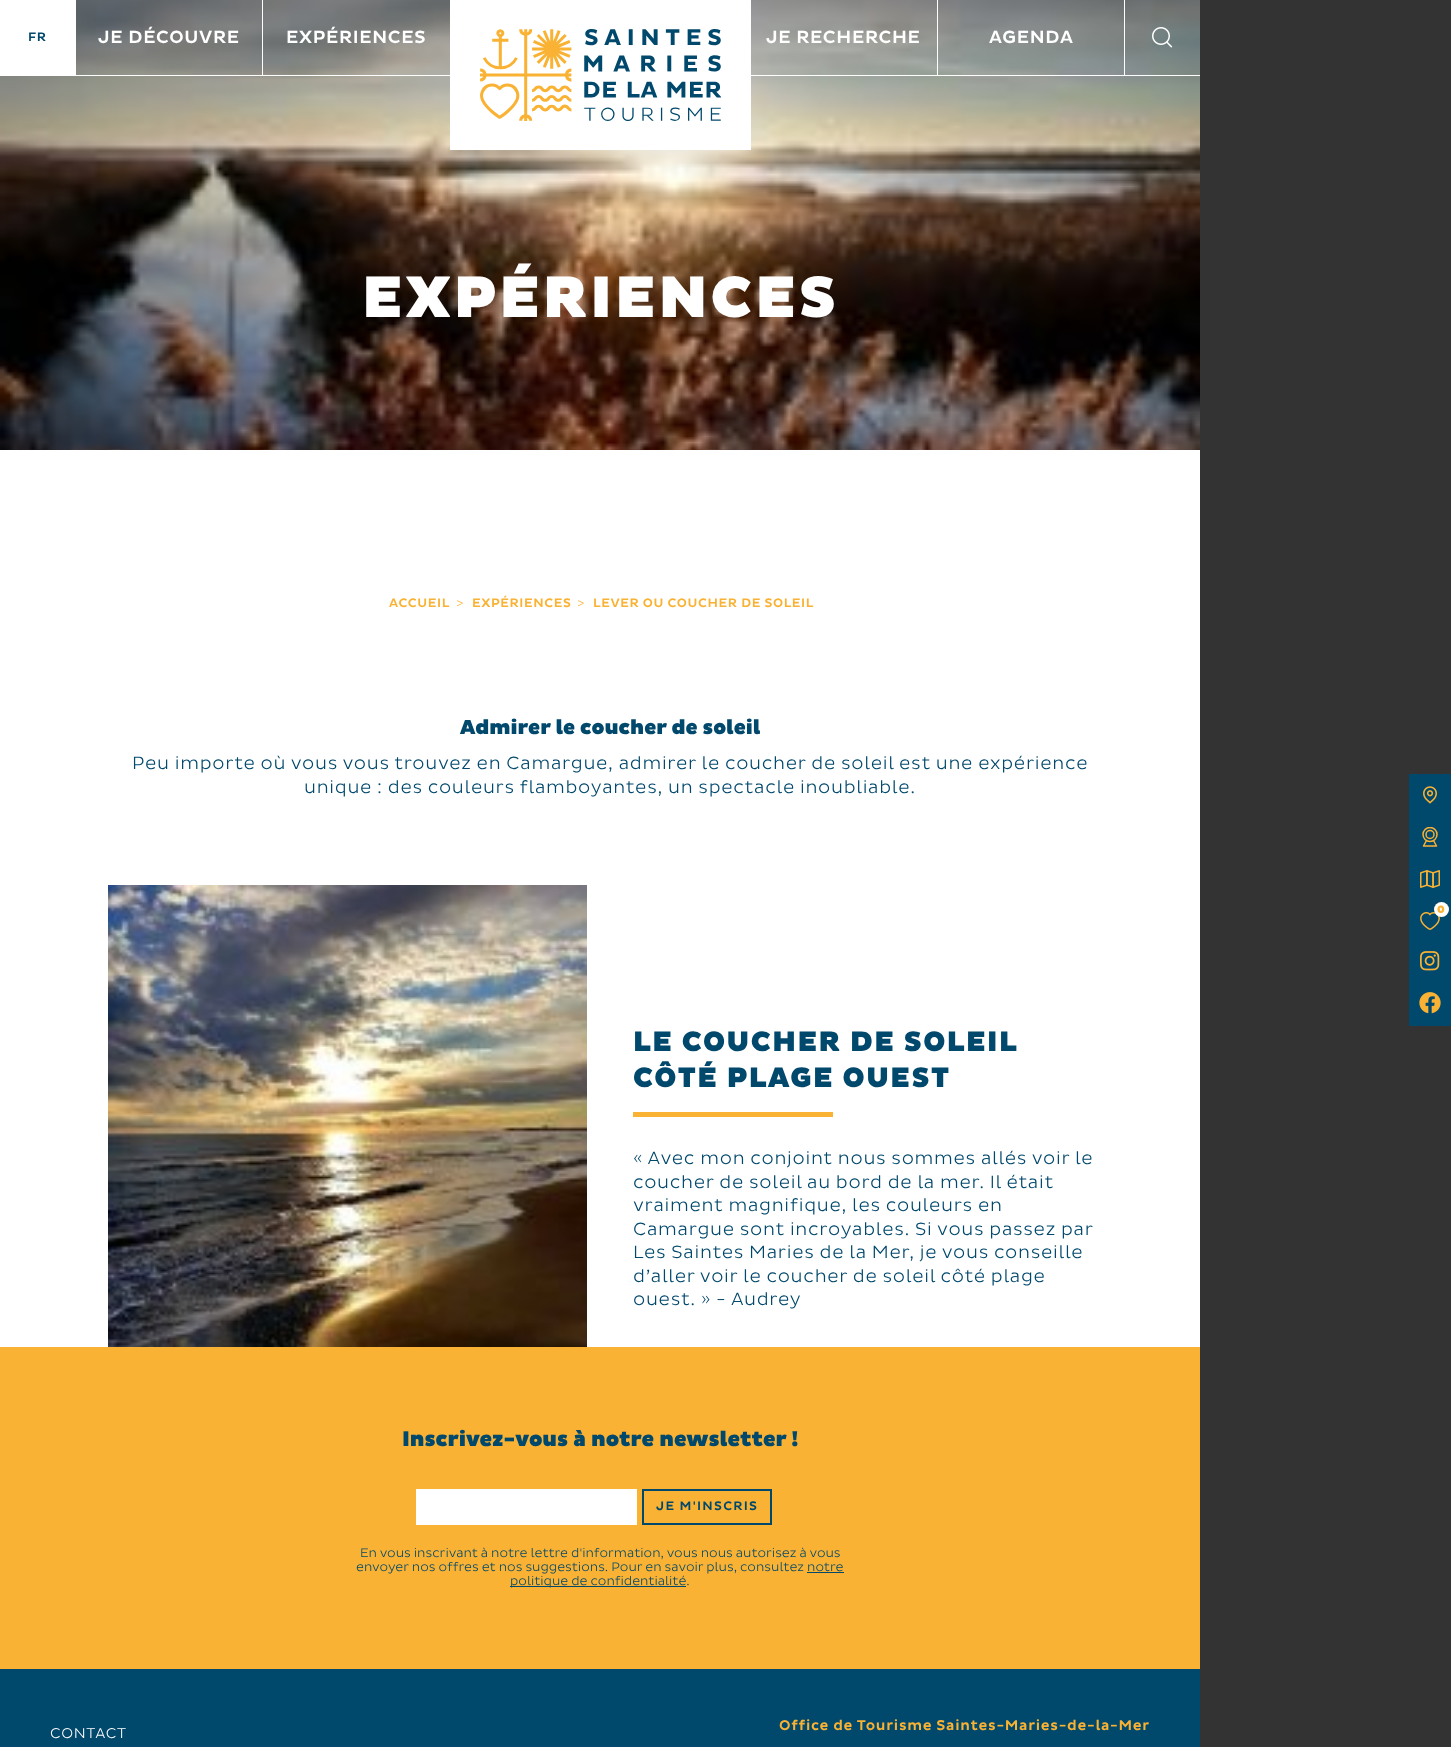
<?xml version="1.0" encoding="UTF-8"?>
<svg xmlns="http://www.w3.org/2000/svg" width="1451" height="1747">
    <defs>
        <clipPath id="clip1"><rect x="1422" y="827" width="16" height="20"/></clipPath>
    </defs>
    <rect width="100%" height="100%" fill="#333333"/>
    <rect x="0" y="450" width="1200" height="897" fill="#FFFFFF"/>
    <image x="0" y="0" width="1200" height="450" href="img_03.png"/>
    <rect x="75" y="0" width="1" height="76" fill="#FFFFFF"/>
    <rect x="0" y="75" width="76" height="1" fill="#FFFFFF"/>
    <rect x="0" y="0" width="75" height="75" fill="#FFFFFF"/>
    <text x="28" y="41" font-family="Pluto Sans" font-size="12.6" font-weight="500" letter-spacing="0.7" fill="#00486C">FR</text>
    <rect x="262" y="0" width="1" height="76" fill="#FFFFFF"/>
    <rect x="76" y="75" width="375" height="1" fill="#FFFFFF"/>
    <text x="98" y="43" font-family="Pluto Sans" font-size="18" font-weight="500" letter-spacing="0.7" fill="#FFFFFF">JE DÉCOUVRE</text>
    <text x="286" y="43" font-family="Pluto Sans" font-size="18" font-weight="500" letter-spacing="0.7" fill="#FFFFFF">EXPÉRIENCES</text>
    <rect x="450" y="0" width="301" height="150" fill="#FFFFFF"/>
    <image x="480" y="29" width="241" height="92" href="img_01.png"/>
    <rect x="937" y="0" width="1" height="76" fill="#FFFFFF"/>
    <rect x="751" y="75" width="187" height="1" fill="#FFFFFF"/>
    <text x="766" y="43" font-family="Pluto Sans" font-size="18" font-weight="500" letter-spacing="0.7" fill="#FFFFFF">JE RECHERCHE</text>
    <rect x="1124" y="0" width="1" height="76" fill="#FFFFFF"/>
    <rect x="938" y="75" width="262" height="1" fill="#FFFFFF"/>
    <text x="989" y="43" font-family="Pluto Sans" font-size="18" font-weight="500" letter-spacing="0.7" fill="#FFFFFF">AGENDA</text>
    <image x="1152" y="27" width="21" height="21" href="img_02.png"/>
    <text x="362" y="317" font-family="Pluto Sans" font-size="59.5" font-weight="900" letter-spacing="3" fill="#FFFFFF">EXPÉRIENCES</text>
    <text x="389" y="607" font-family="Pluto Sans" font-size="12.6" font-weight="500" letter-spacing="0.6" fill="#F9B233">ACCUEIL</text>
    <text x="456" y="607" font-family="Pluto Sans" font-size="12.6" font-weight="300" letter-spacing="0.7" fill="#F9B233">&gt;</text>
    <text x="472" y="607" font-family="Pluto Sans" font-size="12.6" font-weight="500" letter-spacing="0.6" fill="#F9B233">EXPÉRIENCES</text>
    <text x="577" y="607" font-family="Pluto Sans" font-size="12.6" font-weight="300" letter-spacing="0.7" fill="#F9B233">&gt;</text>
    <text x="593" y="607" font-family="Pluto Sans" font-size="12.6" font-weight="500" letter-spacing="0.6" fill="#F9B233">LEVER OU COUCHER DE SOLEIL</text>
    <text x="460" y="734" font-family="Pluto Sans" font-size="20.75" font-weight="900" fill="#00486C">Admirer le coucher de soleil</text>
    <text x="132" y="769" font-family="Pluto Sans" font-size="18" font-weight="300" letter-spacing="0.7" fill="#00486C">Peu importe où vous vous trouvez en Camargue, admirer le coucher de soleil est une expérience</text>
    <text x="304" y="793" font-family="Pluto Sans" font-size="18" font-weight="300" letter-spacing="0.7" fill="#00486C">unique : des couleurs flamboyantes, un spectacle inoubliable.</text>
    <image x="108" y="885" width="479" height="462" href="img_04.png"/>
    <text font-family="Pluto Sans" font-size="28.75" font-weight="900" letter-spacing="1.5" fill="#00486C">
        <tspan x="633" y="1051">LE COUCHER DE SOLEIL</tspan>
        <tspan x="633" y="1087">CÔTÉ PLAGE OUEST</tspan>
    </text>
    <rect x="633" y="1112" width="200" height="5" fill="#F9B233"/>
    <text font-family="Pluto Sans" font-size="18" font-weight="300" letter-spacing="0.7" fill="#00486C">
        <tspan x="633" y="1164">« Avec mon conjoint nous sommes allés voir le</tspan>
        <tspan x="633" y="1188">coucher de soleil au bord de la mer. Il était</tspan>
        <tspan x="633" y="1211">vraiment magnifique, les couleurs en</tspan>
        <tspan x="633" y="1235">Camargue sont incroyables. Si vous passez par</tspan>
        <tspan x="633" y="1258">Les Saintes Maries de la Mer, je vous conseille</tspan>
        <tspan x="633" y="1282">d’aller voir le coucher de soleil côté plage</tspan>
        <tspan x="633" y="1305">ouest. » - Audrey</tspan>
    </text>
    <rect x="1409" y="774" width="42" height="252" fill="#00486C"/>
    <image x="1423" y="786" width="14" height="18" href="img_05.png"/>
    <path d="M 1426.5 840.5 L 1423.5 846 H 1436.5 L 1433.5 840.5" fill="none" stroke="#F9B233" stroke-width="1.5" stroke-linejoin="round"/>
    <circle cx="1430" cy="834.5" r="4" fill="none" stroke="#F9B233" stroke-width="1.5"/>
    <g clip-path="url(#clip1)">
        <circle cx="1430" cy="834.5" r="7" fill="none" stroke="#F9B233" stroke-width="1.5"/>
    </g>
    <image x="1420" y="870" width="20" height="18" href="img_06.png"/>
    <image x="1420" y="912" width="20" height="18" href="img_07.png"/>
    <circle cx="1441.5" cy="909.5" r="7.5" fill="#FFFFFF"/>
    <text x="1437" y="913" font-family="Pluto Sans" font-size="11" font-weight="900" letter-spacing="0.7" fill="#F9B233">0</text>
    <image x="1420" y="951" width="20" height="20" href="img_08.png"/>
    <image x="1419" y="992" width="22" height="22" href="img_09.png"/>
    <rect x="0" y="1347" width="1200" height="322" fill="#F9B233"/>
    <text x="402" y="1446" font-family="Pluto Sans" font-size="21.6" font-weight="900" fill="#00486C">Inscrivez-vous à notre newsletter !</text>
    <rect x="416" y="1489" width="221" height="36" fill="#FFFFFF"/>
    <rect x="643" y="1490" width="128" height="34" fill="none" stroke="#00486C" stroke-width="2"/>
    <text x="656" y="1510" font-family="Pluto Sans" font-size="12.6" font-weight="500" letter-spacing="1.25" fill="#00486C">JE M'INSCRIS</text>
    <text x="360" y="1557" font-family="Pluto Sans" font-size="12.6" font-weight="300" fill="#00486C">En vous inscrivant à notre lettre d'information, vous nous autorisez à vous</text>
    <text x="356" y="1571" font-family="Pluto Sans" font-size="12.6" font-weight="300" fill="#00486C">envoyer nos offres et nos suggestions. Pour en savoir plus, consultez notre</text>
    <rect x="510" y="1586" width="176" height="1" fill="#00486C"/>
    <text x="510" y="1585" font-family="Pluto Sans" font-size="12.6" font-weight="300" fill="#00486C">politique de confidentialité.</text>
    <rect x="807" y="1572" width="37" height="1" fill="#00486C"/>
    <rect x="0" y="1669" width="1200" height="78" fill="#00486C"/>
    <text x="779" y="1730" font-family="Pluto Sans" font-size="14.4" font-weight="500" letter-spacing="0.7" fill="#F9B233">Office de Tourisme Saintes-Maries-de-la-Mer</text>
    <text x="50" y="1738" font-family="Pluto Sans" font-size="14.4" font-weight="300" letter-spacing="0.7" fill="#FFFFFF">CONTACT</text>
</svg>
